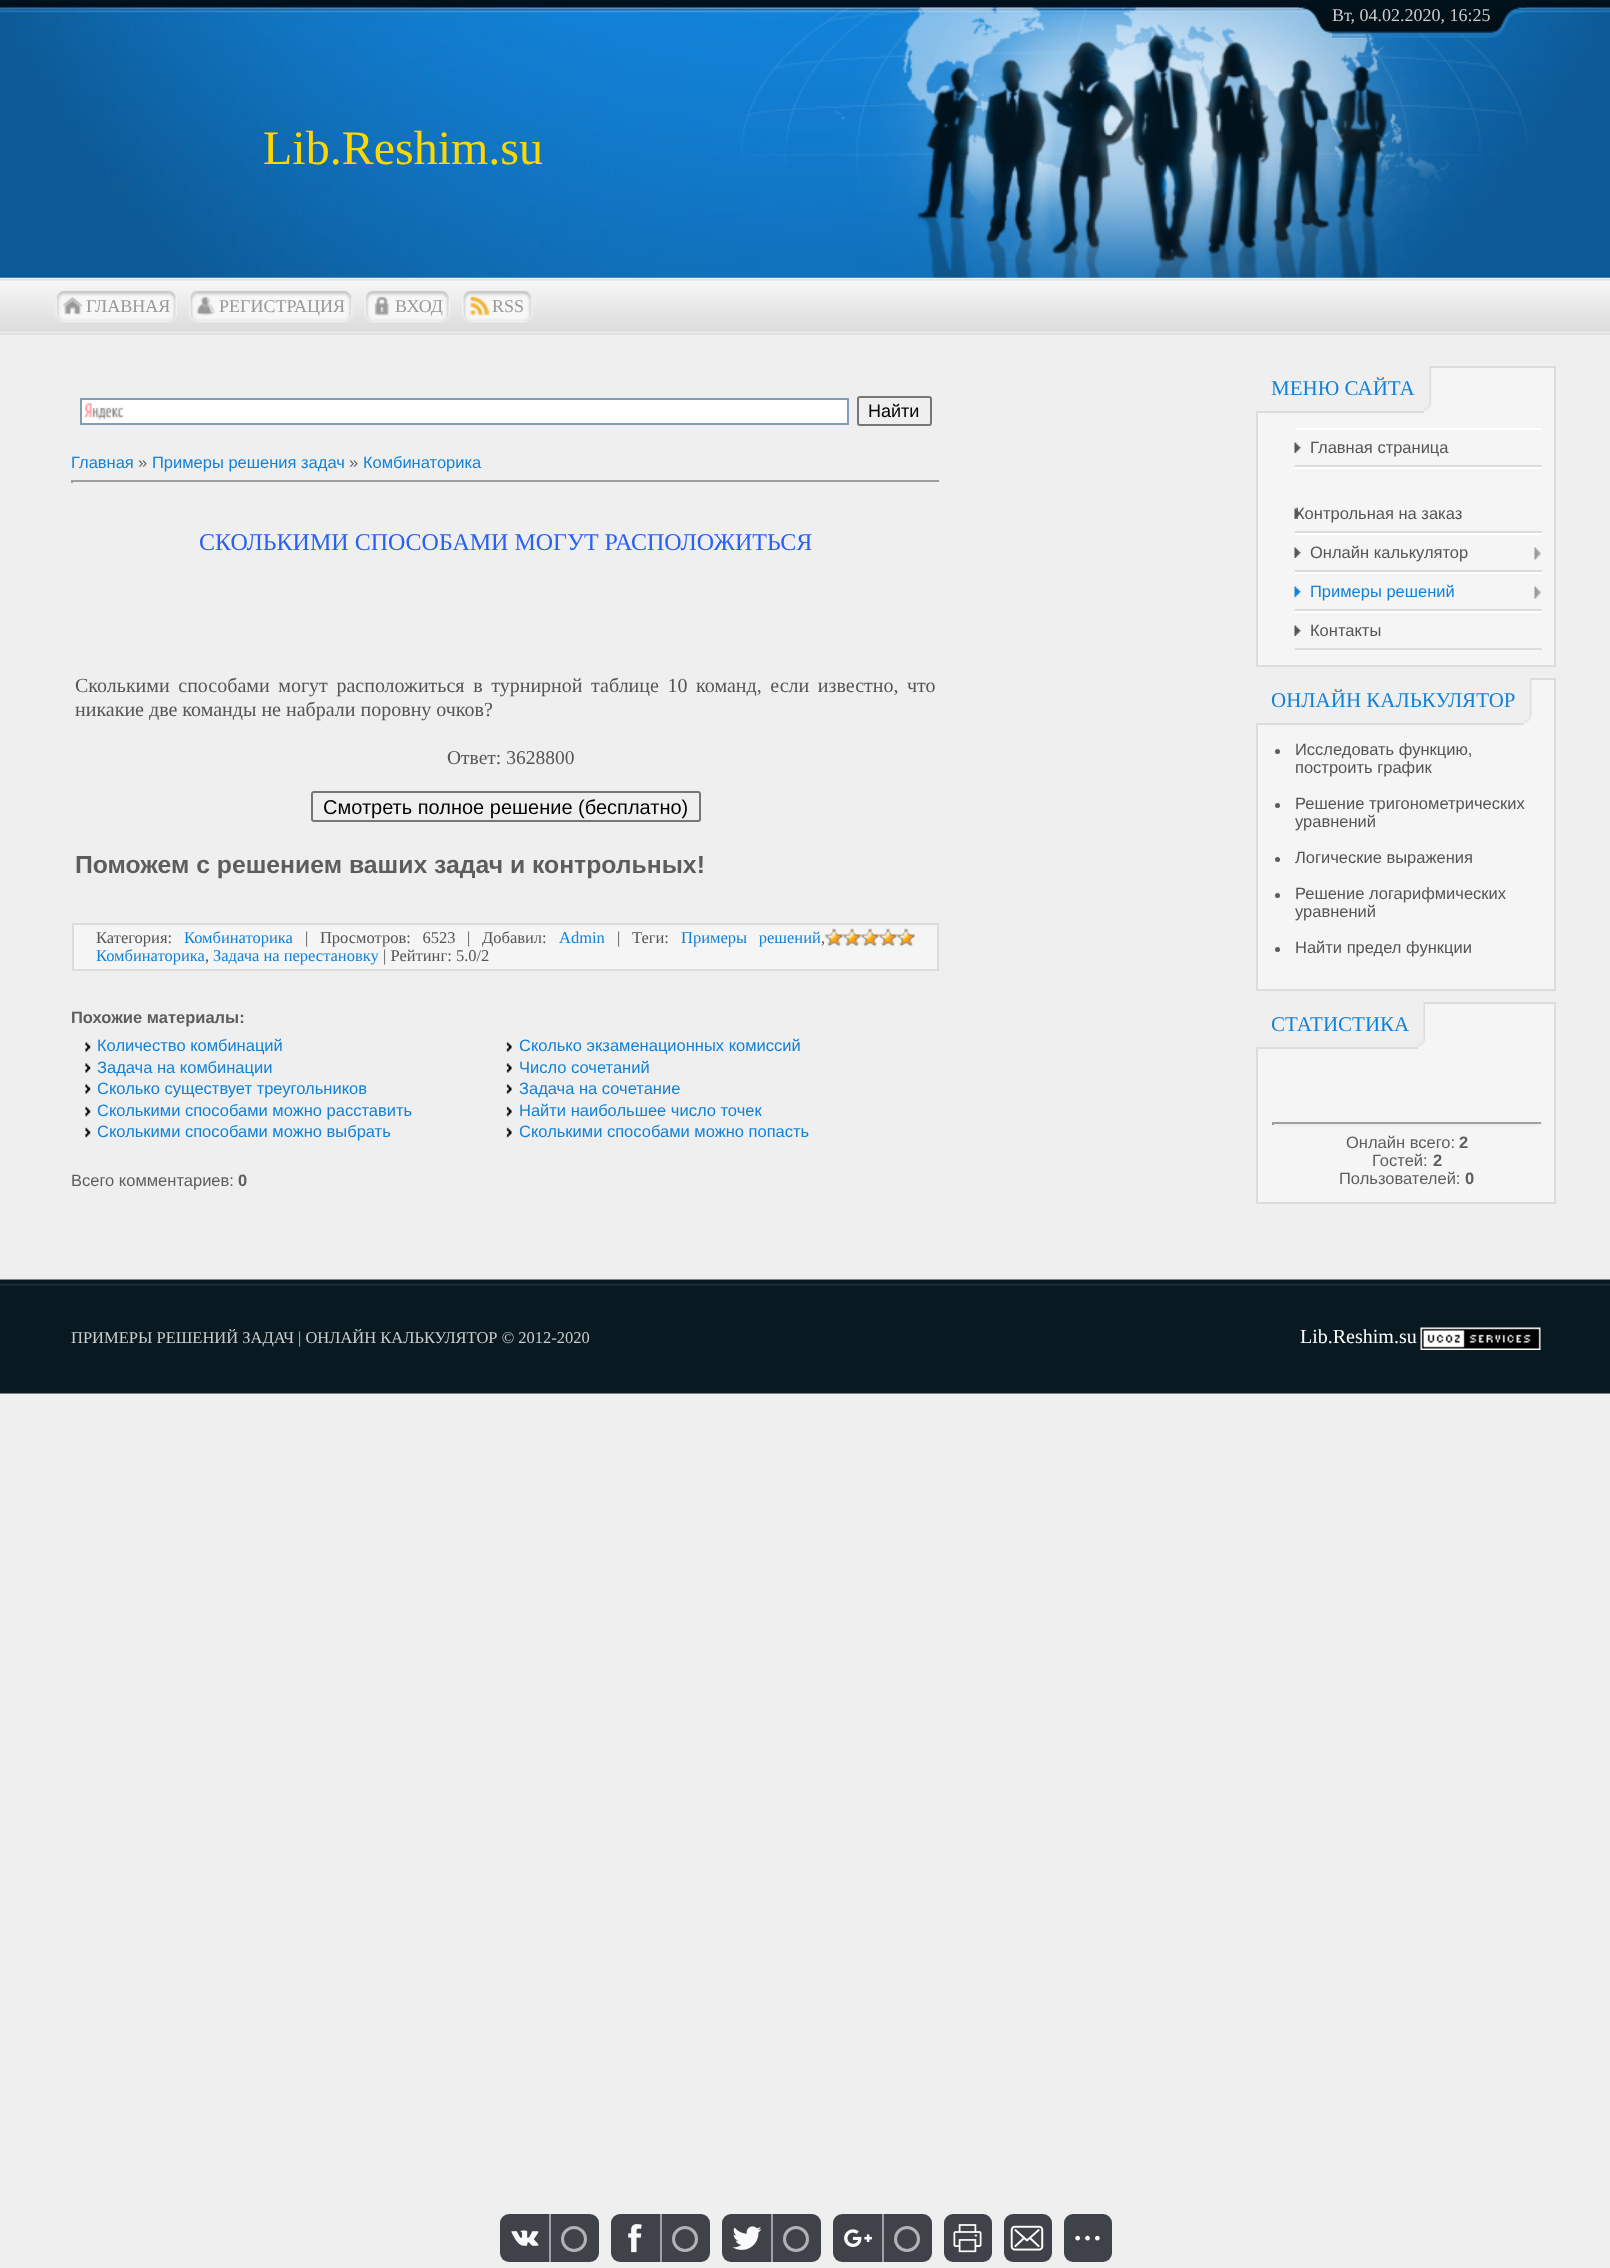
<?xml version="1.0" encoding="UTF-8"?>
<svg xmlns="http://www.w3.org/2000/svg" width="1610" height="2268">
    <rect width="100%" height="100%" fill="#EFEFEF"/>
    <image x="0" y="277" width="1610" height="58" href="img_01.png"/>
    <image x="0" y="0" width="1610" height="278" href="img_02.png"/>
    <image x="741" y="7" width="787" height="271" href="img_03.png"/>
    <image x="1299" y="5" width="33" height="33" href="img_04.png"/>
    <image x="1332" y="0" width="159" height="38" href="img_05.png"/>
    <text x="1332" y="21" font-family="Liberation Serif" font-size="18" fill="#CCCCCC">Вт, 04.02.2020, 16:25</text>
    <image x="1491" y="0" width="35" height="38" href="img_06.png"/>
    <text x="263" y="164" font-family="Liberation Serif" font-size="48" fill="#FFD700">Lib.Reshim.su</text>
    <image x="55" y="290" width="8" height="33" href="img_07.png"/>
    <image x="63" y="290" width="107" height="33" href="img_08.png"/>
    <image x="63" y="296" width="20" height="19" href="img_09.png"/>
    <text x="86" y="312" font-family="Liberation Serif" font-size="18" fill="#999999">ГЛАВНАЯ</text>
    <image x="169" y="290" width="8" height="33" href="img_10.png"/>
    <image x="189" y="290" width="8" height="33" href="img_11.png"/>
    <image x="196" y="290" width="149" height="33" href="img_12.png"/>
    <image x="196" y="296" width="19" height="20" href="img_13.png"/>
    <text x="219" y="312" font-family="Liberation Serif" font-size="18" fill="#999999">РЕГИСТРАЦИЯ</text>
    <image x="345" y="290" width="8" height="33" href="img_14.png"/>
    <image x="364" y="290" width="8" height="33" href="img_15.png"/>
    <image x="372" y="290" width="71" height="33" href="img_16.png"/>
    <image x="374" y="296" width="15" height="20" href="img_17.png"/>
    <text x="395" y="312" font-family="Liberation Serif" font-size="18" fill="#999999">ВХОД</text>
    <image x="442" y="290" width="8" height="33" href="img_18.png"/>
    <image x="462" y="290" width="8" height="33" href="img_19.png"/>
    <image x="469" y="290" width="56" height="33" href="img_20.png"/>
    <image x="469" y="296" width="20" height="20" href="img_21.png"/>
    <text x="492" y="312" font-family="Liberation Serif" font-size="18" fill="#999999">RSS</text>
    <image x="525" y="290" width="8" height="33" href="img_14.png"/>
    <rect x="82" y="400" width="765" height="23" fill="#FFFFFF"/>
    <image x="84" y="403" width="39" height="17" href="img_22.png"/>
    <rect x="81" y="399" width="767" height="25" fill="none" stroke="#7F9DB9" stroke-width="2"/>
    <rect x="858" y="397" width="73" height="28" rx="2" fill="none" stroke="#767676" stroke-width="2"/>
    <text x="868" y="417" font-family="Liberation Sans" font-size="18" fill="#000000">Найти</text>
    <text x="71" y="468" font-family="Liberation Sans" font-size="16.5" fill="#1282D8">Главная</text>
    <text x="138" y="468" font-family="Liberation Sans" font-size="16.5" fill="#5D5D5D">»</text>
    <text x="152" y="468" font-family="Liberation Sans" font-size="16.5" fill="#1282D8">Примеры решения задач</text>
    <text x="349" y="468" font-family="Liberation Sans" font-size="16.5" fill="#5D5D5D">»</text>
    <text x="363" y="468" font-family="Liberation Sans" font-size="16.5" fill="#1282D8">Комбинаторика</text>
    <rect x="71" y="480" width="870" height="2" fill="#9F9F9F"/>
    <rect x="939" y="480" width="2" height="3" fill="#EEEEEE"/>
    <rect x="71" y="480" width="2" height="3" fill="#9F9F9F"/>
    <text x="199" y="550" font-family="Liberation Serif" font-size="24" fill="#2A61F3">СКОЛЬКИМИ СПОСОБАМИ МОГУТ РАСПОЛОЖИТЬСЯ</text>
    <text font-family="Liberation Serif" font-size="20" fill="#555555">
        <tspan x="75" y="692" word-spacing="3.6">Сколькими способами могут расположиться в турнирной таблице 10 команд, если известно, что</tspan>
        <tspan x="75" y="716">никакие две команды не набрали поровну очков?</tspan>
    </text>
    <text x="447" y="764" font-family="Liberation Serif" font-size="19.5" fill="#555555">Ответ: 3628800</text>
    <rect x="312" y="792" width="388" height="29" rx="2" fill="none" stroke="#767676" stroke-width="2"/>
    <text x="323" y="814" font-family="Liberation Sans" font-size="20" fill="#000000">Смотреть полное решение (бесплатно)</text>
    <text x="75" y="873" font-family="Liberation Sans" font-size="24.75" font-weight="700" fill="#5D5D5D">Поможем с решением ваших задач и контрольных!</text>
    <rect x="73" y="924" width="865" height="46" fill="#F5F5F5" stroke="#DCDBE0" stroke-width="2"/>
    <text x="96" y="943" font-family="Liberation Serif" font-size="16.5" fill="#555555">Категория:</text>
    <text x="184" y="943" font-family="Liberation Serif" font-size="16.5" fill="#1282D8">Комбинаторика</text>
    <text x="305" y="943" word-spacing="7.5" font-family="Liberation Serif" font-size="16.5" fill="#555555">| Просмотров: 6523 | Добавил:</text>
    <text x="559" y="943" font-family="Liberation Serif" font-size="16.5" fill="#1282D8">Admin</text>
    <text x="617" y="943" word-spacing="7.5" font-family="Liberation Serif" font-size="16.5" fill="#555555">| Теги:</text>
    <text x="681" y="943" word-spacing="7.5" font-family="Liberation Serif" font-size="16.5" fill="#1282D8">Примеры решений</text>
    <text x="821" y="943" font-family="Liberation Serif" font-size="16.5" fill="#555555">,</text>
    <image x="825" y="928" width="90" height="19" href="img_23.png"/>
    <image x="825" y="928" width="90" height="19" href="img_24.png"/>
    <text x="96" y="961" font-family="Liberation Serif" font-size="16.5" fill="#1282D8">Комбинаторика</text>
    <text x="205" y="961" font-family="Liberation Serif" font-size="16.5" fill="#555555">,</text>
    <text x="213" y="961" font-family="Liberation Serif" font-size="16.5" fill="#1282D8">Задача на перестановку</text>
    <text x="383" y="961" font-family="Liberation Serif" font-size="16.5" fill="#555555">| Рейтинг: 5.0/2</text>
    <text x="71" y="1023" font-family="Liberation Sans" font-size="16.5" font-weight="700" fill="#5D5D5D">Похожие материалы:</text>
    <image x="85" y="1042" width="6" height="10" href="img_25.png"/>
    <text x="97" y="1051" font-family="Liberation Sans" font-size="16.5" fill="#1282D8">Количество комбинаций</text>
    <image x="506" y="1042" width="6" height="10" href="img_26.png"/>
    <text x="519" y="1051" font-family="Liberation Sans" font-size="16.5" fill="#1282D8">Сколько экзаменационных комиссий</text>
    <image x="85" y="1063" width="6" height="10" href="img_25.png"/>
    <text x="97" y="1073" font-family="Liberation Sans" font-size="16.5" fill="#1282D8">Задача на комбинации</text>
    <image x="506" y="1063" width="6" height="10" href="img_26.png"/>
    <text x="519" y="1073" font-family="Liberation Sans" font-size="16.5" fill="#1282D8">Число сочетаний</text>
    <image x="85" y="1084" width="6" height="10" href="img_25.png"/>
    <text x="97" y="1094" font-family="Liberation Sans" font-size="16.5" fill="#1282D8">Сколько существует треугольников</text>
    <image x="506" y="1084" width="6" height="10" href="img_26.png"/>
    <text x="519" y="1094" font-family="Liberation Sans" font-size="16.5" fill="#1282D8">Задача на сочетание</text>
    <image x="85" y="1106" width="6" height="11" href="img_27.png"/>
    <text x="97" y="1116" font-family="Liberation Sans" font-size="16.5" fill="#1282D8">Сколькими способами можно расставить</text>
    <image x="506" y="1106" width="6" height="11" href="img_28.png"/>
    <text x="519" y="1116" font-family="Liberation Sans" font-size="16.5" fill="#1282D8">Найти наибольшее число точек</text>
    <image x="85" y="1127" width="6" height="11" href="img_27.png"/>
    <text x="97" y="1137" font-family="Liberation Sans" font-size="16.5" fill="#1282D8">Сколькими способами можно выбрать</text>
    <image x="506" y="1127" width="6" height="11" href="img_28.png"/>
    <text x="519" y="1137" font-family="Liberation Sans" font-size="16.5" fill="#1282D8">Сколькими способами можно попасть</text>
    <text x="71" y="1186" font-family="Liberation Sans" font-size="16.5" fill="#5D5D5D">Всего комментариев:</text>
    <text x="238" y="1186" font-family="Liberation Sans" font-size="16.5" font-weight="700" fill="#5D5D5D">0</text>
    <rect x="1258" y="368" width="296" height="297" fill="#F5F5F5"/>
    <rect x="1431" y="366" width="125" height="2" fill="#DCDBE0"/>
    <rect x="1554" y="366" width="2" height="300" fill="#DCDBE0"/>
    <rect x="1258" y="368" width="166" height="43" fill="#EFEFEF"/>
    <rect x="1256" y="411" width="168" height="2" fill="#DCDBE0"/>
    <text x="1271" y="395" font-family="Liberation Serif" font-size="21" fill="#1282D8">МЕНЮ САЙТА</text>
    <image x="1423" y="366" width="8" height="45" href="img_29.png"/>
    <rect x="1256" y="665" width="300" height="2" fill="#DCDBE0"/>
    <rect x="1256" y="413" width="2" height="253" fill="#DCDBE0"/>
    <rect x="1295" y="428" width="247" height="2" fill="#FFFFFF"/>
    <rect x="1295" y="465" width="247" height="2" fill="#DCDBE0"/>
    <image x="1294" y="442" width="7" height="11" href="img_30.png"/>
    <text x="1310" y="453" font-family="Liberation Sans" font-size="16.5" fill="#555555">Главная страница</text>
    <rect x="1295" y="467" width="247" height="2" fill="#FFFFFF"/>
    <rect x="1295" y="531" width="247" height="2" fill="#DCDBE0"/>
    <image x="1294" y="508" width="7" height="11" href="img_30.png"/>
    <text x="1295" y="519" font-family="Liberation Sans" font-size="16.5" fill="#555555">Контрольная на заказ</text>
    <rect x="1295" y="533" width="247" height="2" fill="#FFFFFF"/>
    <rect x="1295" y="570" width="247" height="2" fill="#DCDBE0"/>
    <image x="1294" y="547" width="7" height="11" href="img_30.png"/>
    <text x="1310" y="558" font-family="Liberation Sans" font-size="16.5" fill="#555555">Онлайн калькулятор</text>
    <image x="1534" y="547" width="7" height="13" href="img_31.png"/>
    <rect x="1295" y="572" width="247" height="2" fill="#FFFFFF"/>
    <rect x="1295" y="609" width="247" height="2" fill="#DCDBE0"/>
    <image x="1294" y="586" width="7" height="12" href="img_32.png"/>
    <text x="1310" y="597" font-family="Liberation Sans" font-size="16.5" fill="#1282D8">Примеры решений</text>
    <image x="1534" y="586" width="7" height="13" href="img_31.png"/>
    <rect x="1295" y="611" width="247" height="2" fill="#FFFFFF"/>
    <rect x="1295" y="648" width="247" height="2" fill="#DCDBE0"/>
    <image x="1294" y="625" width="7" height="11" href="img_30.png"/>
    <text x="1310" y="636" font-family="Liberation Sans" font-size="16.5" fill="#555555">Контакты</text>
    <rect x="1258" y="680" width="296" height="309" fill="#F5F5F5"/>
    <rect x="1531" y="678" width="25" height="2" fill="#DCDBE0"/>
    <rect x="1554" y="678" width="2" height="312" fill="#DCDBE0"/>
    <rect x="1258" y="680" width="266" height="43" fill="#EFEFEF"/>
    <rect x="1256" y="723" width="268" height="2" fill="#DCDBE0"/>
    <text x="1271" y="707" font-family="Liberation Serif" font-size="21" fill="#1282D8">ОНЛАЙН КАЛЬКУЛЯТОР</text>
    <image x="1524" y="678" width="8" height="45" href="img_33.png"/>
    <rect x="1256" y="989" width="300" height="2" fill="#DCDBE0"/>
    <rect x="1256" y="725" width="2" height="265" fill="#DCDBE0"/>
    <circle cx="1277.5" cy="751.5" r="2.5" fill="#5D5D5D"/>
    <text font-family="Liberation Sans" font-size="16.5" fill="#555555">
        <tspan x="1295" y="755">Исследовать функцию,</tspan>
        <tspan x="1295" y="773">построить график</tspan>
    </text>
    <circle cx="1277.5" cy="805.5" r="2.5" fill="#5D5D5D"/>
    <text font-family="Liberation Sans" font-size="16.5" fill="#555555">
        <tspan x="1295" y="809">Решение тригонометрических</tspan>
        <tspan x="1295" y="827">уравнений</tspan>
    </text>
    <circle cx="1277.5" cy="859.5" r="2.5" fill="#5D5D5D"/>
    <text x="1295" y="863" font-family="Liberation Sans" font-size="16.5" fill="#555555">Логические выражения</text>
    <circle cx="1277.5" cy="895.5" r="2.5" fill="#5D5D5D"/>
    <text font-family="Liberation Sans" font-size="16.5" fill="#555555">
        <tspan x="1295" y="899">Решение логарифмических</tspan>
        <tspan x="1295" y="917">уравнений</tspan>
    </text>
    <circle cx="1277.5" cy="949.5" r="2.5" fill="#5D5D5D"/>
    <text x="1295" y="953" font-family="Liberation Sans" font-size="16.5" fill="#555555">Найти предел функции</text>
    <rect x="1258" y="1004" width="296" height="198" fill="#F5F5F5"/>
    <rect x="1425" y="1002" width="131" height="2" fill="#DCDBE0"/>
    <rect x="1554" y="1002" width="2" height="201" fill="#DCDBE0"/>
    <rect x="1258" y="1004" width="160" height="43" fill="#EFEFEF"/>
    <rect x="1256" y="1047" width="162" height="2" fill="#DCDBE0"/>
    <text x="1271" y="1031" font-family="Liberation Serif" font-size="21" fill="#1282D8">СТАТИСТИКА</text>
    <image x="1417" y="1002" width="8" height="45" href="img_29.png"/>
    <rect x="1256" y="1202" width="300" height="2" fill="#DCDBE0"/>
    <rect x="1256" y="1049" width="2" height="154" fill="#DCDBE0"/>
    <rect x="1272" y="1122" width="270" height="2" fill="#9F9F9F"/>
    <rect x="1541" y="1122" width="2" height="3" fill="#EEEEEE"/>
    <rect x="1272" y="1124" width="270" height="2" fill="#EEEEEE"/>
    <rect x="1272" y="1122" width="2" height="3" fill="#9F9F9F"/>
    <text x="1346" y="1148" font-family="Liberation Sans" font-size="16.5" fill="#5D5D5D">Онлайн всего:</text>
    <text x="1459" y="1148" font-family="Liberation Sans" font-size="16.5" font-weight="700" fill="#5D5D5D">2</text>
    <text x="1372" y="1166" font-family="Liberation Sans" font-size="16.5" fill="#5D5D5D">Гостей:</text>
    <text x="1433" y="1166" font-family="Liberation Sans" font-size="16.5" font-weight="700" fill="#5D5D5D">2</text>
    <text x="1339" y="1184" font-family="Liberation Sans" font-size="16.5" fill="#5D5D5D">Пользователей:</text>
    <text x="1465" y="1184" font-family="Liberation Sans" font-size="16.5" font-weight="700" fill="#5D5D5D">0</text>
    <image x="0" y="1279" width="1610" height="115" href="img_34.png"/>
    <text x="71" y="1343" font-family="Liberation Serif" font-size="16.5" fill="#CCCCCC">ПРИМЕРЫ РЕШЕНИЙ ЗАДАЧ | ОНЛАЙН КАЛЬКУЛЯТОР © 2012-2020</text>
    <text x="1300" y="1343" font-family="Liberation Serif" font-size="20" fill="#FFFFFF">Lib.Reshim.su</text>
    <image x="1420" y="1327" width="121" height="23" href="img_35.png"/>
    <rect x="500" y="2214" width="99" height="48" rx="9" fill="#3F4248"/>
    <image x="511" y="2230" width="28" height="16" href="img_36.png"/>
    <rect x="549" y="2214" width="2" height="48" fill="#9FA1A4"/>
    <circle cx="574" cy="2239" r="11.5" fill="none" stroke="#B2B3B6" stroke-width="3"/>
    <rect x="611" y="2214" width="99" height="48" rx="9" fill="#3F4248"/>
    <image x="628" y="2224" width="14" height="29" href="img_37.png"/>
    <rect x="660" y="2214" width="2" height="48" fill="#9FA1A4"/>
    <circle cx="685" cy="2239" r="11.5" fill="none" stroke="#B2B3B6" stroke-width="3"/>
    <rect x="722" y="2214" width="99" height="48" rx="9" fill="#3F4248"/>
    <image x="732" y="2226" width="30" height="24" href="img_38.png"/>
    <rect x="771" y="2214" width="2" height="48" fill="#9FA1A4"/>
    <circle cx="796" cy="2239" r="11.5" fill="none" stroke="#B2B3B6" stroke-width="3"/>
    <rect x="833" y="2214" width="99" height="48" rx="9" fill="#3F4248"/>
    <image x="844" y="2229" width="28" height="18" href="img_39.png"/>
    <rect x="882" y="2214" width="2" height="48" fill="#9FA1A4"/>
    <circle cx="907" cy="2239" r="11.5" fill="none" stroke="#B2B3B6" stroke-width="3"/>
    <rect x="944" y="2214" width="48" height="48" rx="9" fill="#3F4248"/>
    <image x="953" y="2224" width="29" height="29" href="img_40.png"/>
    <rect x="1004" y="2214" width="48" height="48" rx="9" fill="#3F4248"/>
    <image x="1010" y="2225" width="34" height="26" href="img_41.png"/>
    <rect x="1064" y="2214" width="48" height="48" rx="9" fill="#3F4248"/>
    <image x="1075" y="2235" width="25" height="6" href="img_42.png"/>
</svg>
